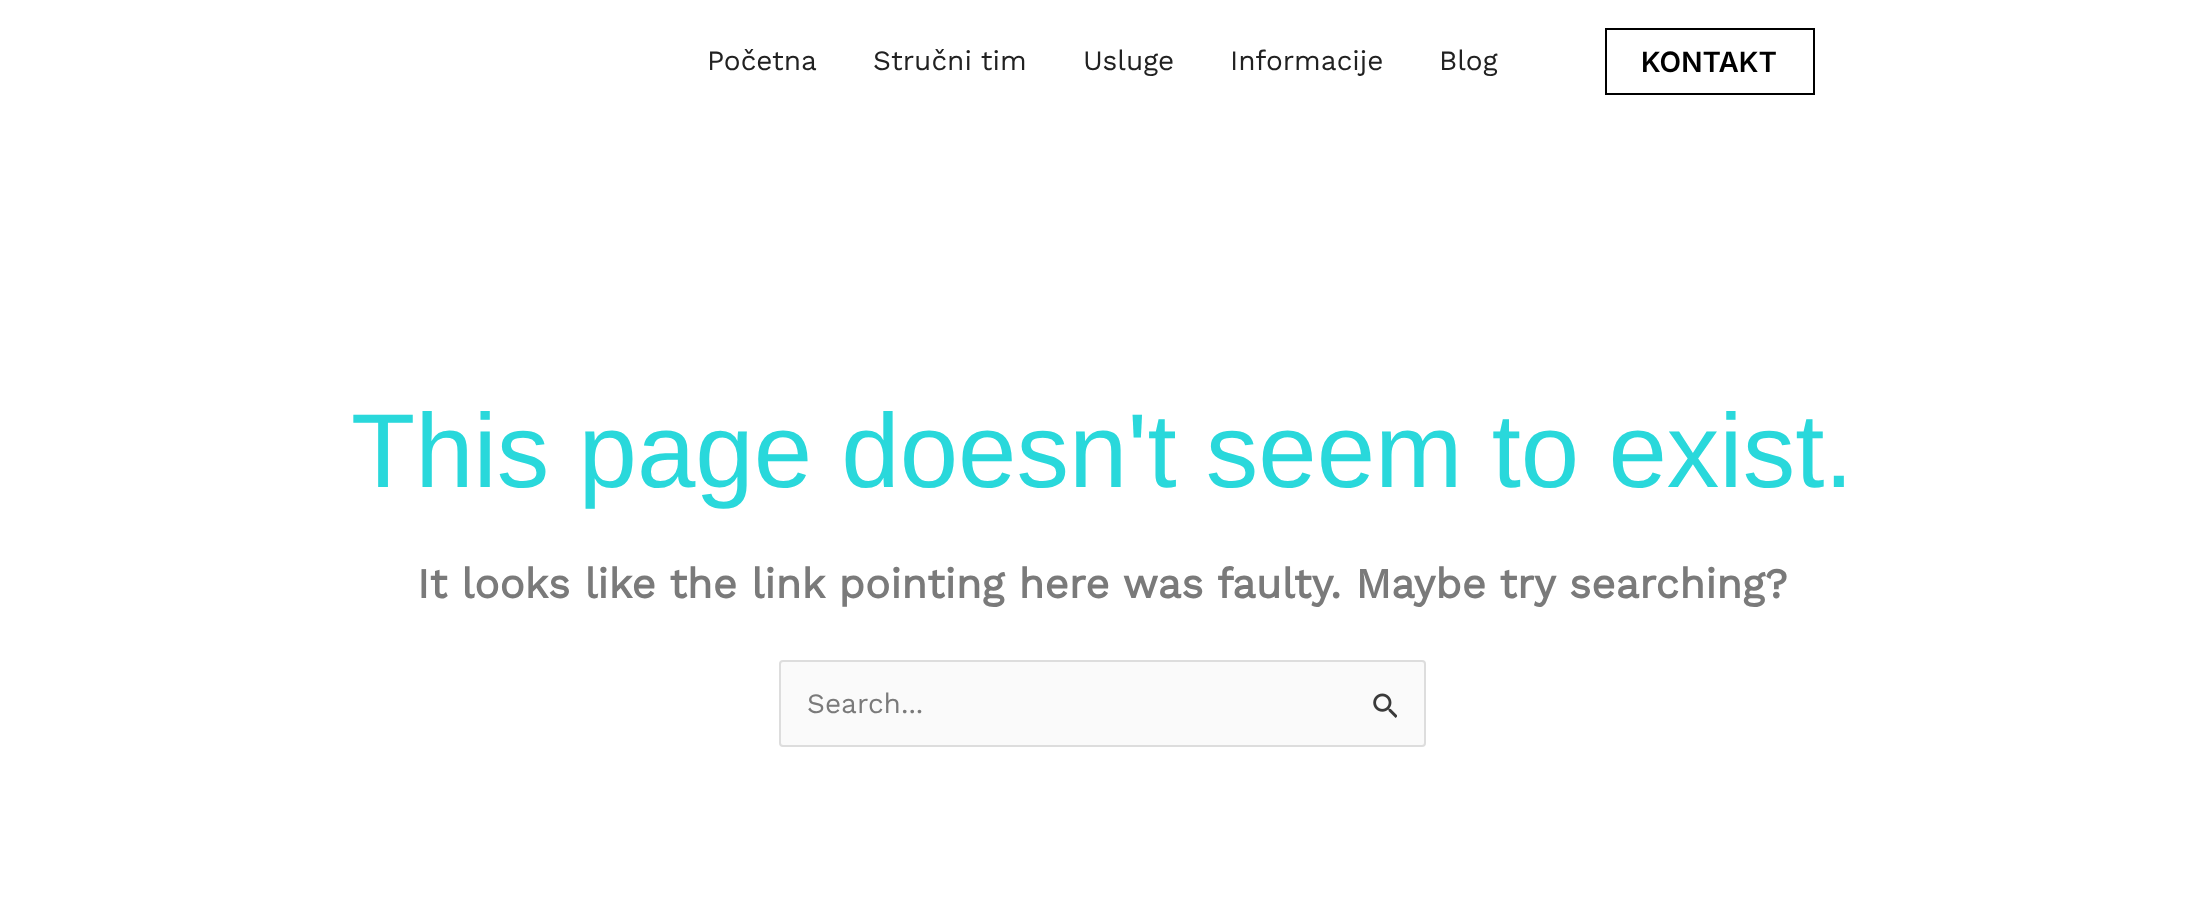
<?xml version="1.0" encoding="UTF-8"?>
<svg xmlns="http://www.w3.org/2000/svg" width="2204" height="914">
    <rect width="100%" height="100%" fill="#FFFFFF"/>
    <text x="707" y="70" font-family="Work Sans" font-size="28" fill="#212121">Početna</text>
    <text x="873" y="70" font-family="Work Sans" font-size="28" fill="#212121">Stručni tim</text>
    <text x="1083" y="70" font-family="Work Sans" font-size="28" fill="#212121">Usluge</text>
    <text x="1230" y="70" font-family="Work Sans" font-size="28" fill="#212121">Informacije</text>
    <text x="1439" y="70" font-family="Work Sans" font-size="28" fill="#212121">Blog</text>
    <rect x="1606" y="29" width="208" height="65" fill="none" stroke="#000000" stroke-width="2"/>
    <text x="1641" y="72" font-family="Inter" font-size="28" font-weight="600" fill="#000000">KONTAKT</text>
    <text x="351" y="487" font-family="Liberation Sans" font-size="105" fill="#29D8DB">This page doesn't seem to exist.</text>
    <text x="417" y="598" font-family="Work Sans" font-size="42" font-weight="700" fill="#7A7A7A">It looks like the link pointing here was faulty. Maybe try searching?</text>
    <rect x="780" y="661" width="645" height="85" rx="3" fill="#FAFAFA" stroke="#DDDDDD" stroke-width="2"/>
    <text x="807" y="713" font-family="Work Sans" font-size="28" fill="#7A7A7A">Search...</text>
    <image x="1373" y="693" width="24" height="25" href="img_01.png"/>
</svg>
